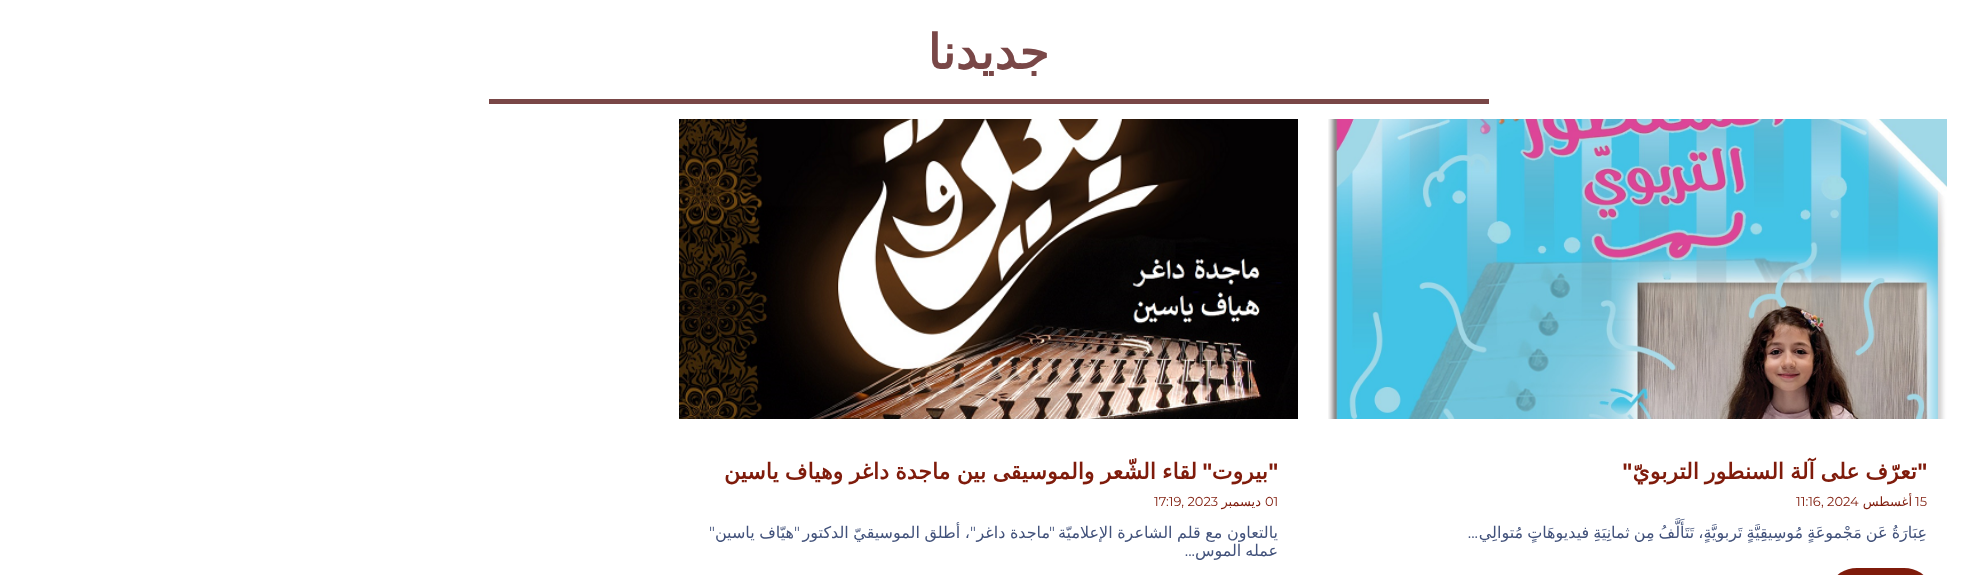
<?xml version="1.0" encoding="UTF-8"?>
<svg xmlns="http://www.w3.org/2000/svg" width="1977" height="575">
    <rect width="100%" height="100%" fill="#FFFFFF"/>
    <text x="1049" y="69" font-family="DejaVu Sans" font-size="48" font-weight="700" direction="rtl" fill="#794747">جديدنا</text>
    <rect x="489" y="99" width="1000" height="5" fill="#794747"/>
    <image x="1328" y="119" width="619" height="300" href="img_01.png"/>
    <text x="1917" y="479" word-spacing="-1" font-family="DejaVu Sans" font-size="22" font-weight="700" direction="rtl" fill="#7F1B0B">تعرّف على آلة السنطور التربويّ</text>
    <text x="1927" y="479" font-family="Montserrat" font-size="22" font-weight="700" direction="rtl" fill="#7F1B0B">"</text>
    <text x="1632" y="479" font-family="Montserrat" font-size="22" font-weight="700" direction="rtl" fill="#7F1B0B">"</text>
    <text x="1915" y="506" font-family="Montserrat" font-size="13" fill="#7F1B0B">15</text>
    <text x="1912" y="506" font-family="DejaVu Sans" font-size="13" direction="rtl" fill="#7F1B0B">أغسطس</text>
    <text x="1796" y="506" font-family="Montserrat" font-size="13" fill="#7F1B0B">11:16, 2024</text>
    <text x="1927" y="538" word-spacing="-1" font-family="DejaVu Sans" font-size="16" direction="rtl" fill="#42527B">عِبَارَةُ عَن مَجْموعَةٍ مُوسِيقِيَّةٍ تَربويَّةٍ، تَتَأَلَّفُ مِن ثمانِيَةِ فيديوهَاتٍ مُتوالِي</text>
    <text x="1478" y="538" font-family="Montserrat" font-size="16" direction="rtl" fill="#42527B">...</text>
    <rect x="1834" y="568" width="93" height="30" rx="23" fill="#7F1B0B"/>
    <image x="679" y="119" width="619" height="300" href="img_02.png"/>
    <text x="1278" y="479" font-family="Montserrat" font-size="22" font-weight="700" direction="rtl" fill="#7F1B0B">"</text>
    <text x="1212" y="479" font-family="Montserrat" font-size="22" font-weight="700" direction="rtl" fill="#7F1B0B">"</text>
    <text x="1197" y="479" word-spacing="-0.75" font-family="DejaVu Sans" font-size="22" font-weight="700" direction="rtl" fill="#7F1B0B">لقاء الشّعر والموسيقى بين ماجدة داغر وهياف ياسين</text>
    <text x="1268" y="479" font-family="DejaVu Sans" font-size="22" font-weight="700" direction="rtl" fill="#7F1B0B">بيروت</text>
    <text x="1265" y="506" font-family="Montserrat" font-size="13" fill="#7F1B0B">01</text>
    <text x="1261" y="506" font-family="DejaVu Sans" font-size="13" direction="rtl" fill="#7F1B0B">ديسمبر</text>
    <text x="1154" y="506" font-family="Montserrat" font-size="13" fill="#7F1B0B">17:19, 2023</text>
    <text x="1278" y="538" word-spacing="-0.5" font-family="DejaVu Sans" font-size="16" direction="rtl" fill="#42527B">يالتعاون مع قلم الشاعرة الإعلاميّة</text>
    <text x="1055" y="538" font-family="Montserrat" font-size="16" direction="rtl" fill="#42527B">"</text>
    <text x="970" y="538" word-spacing="-0.5" font-family="DejaVu Sans" font-size="16" direction="rtl" fill="#42527B">، أطلق الموسيقيّ الدكتور</text>
    <text x="976" y="538" font-family="Montserrat" font-size="16" direction="rtl" fill="#42527B">"</text>
    <text x="1050" y="538" word-spacing="-0.5" font-family="DejaVu Sans" font-size="16" direction="rtl" fill="#42527B">ماجدة داغر</text>
    <text x="800" y="538" font-family="Montserrat" font-size="16" direction="rtl" fill="#42527B">"</text>
    <text x="794" y="538" word-spacing="-0.5" font-family="DejaVu Sans" font-size="16" direction="rtl" fill="#42527B">هيّاف ياسين</text>
    <text x="715" y="538" font-family="Montserrat" font-size="16" direction="rtl" fill="#42527B">"</text>
    <text x="1278" y="556" word-spacing="-1" font-family="DejaVu Sans" font-size="16" direction="rtl" fill="#42527B">عمله الموس</text>
    <text x="1195" y="556" font-family="Montserrat" font-size="16" direction="rtl" fill="#42527B">...</text>
</svg>
